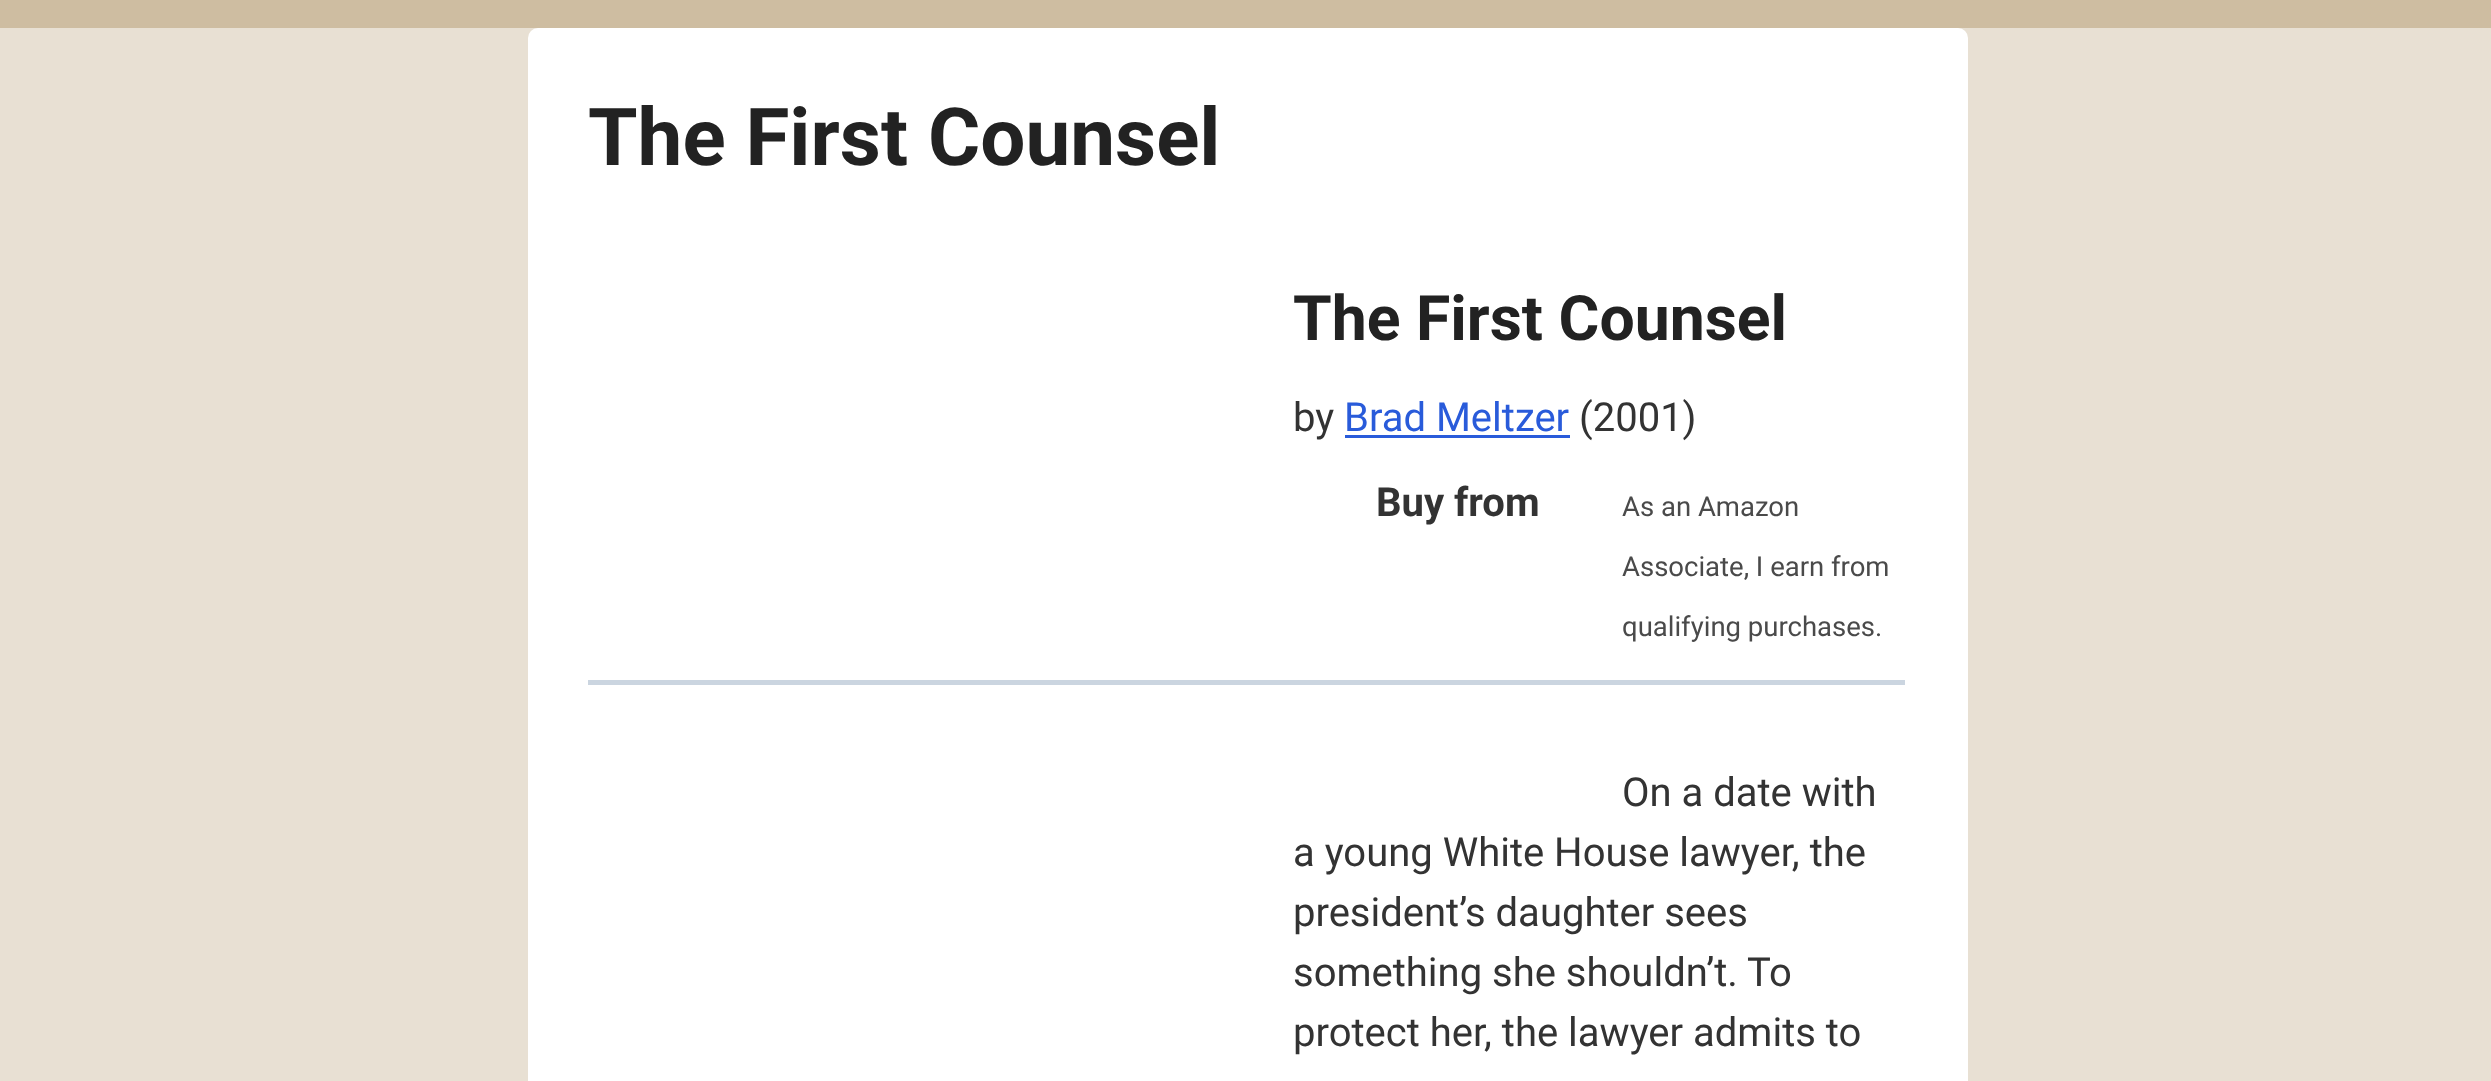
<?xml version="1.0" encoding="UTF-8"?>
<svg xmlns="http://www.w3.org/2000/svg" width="2491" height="1081">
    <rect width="100%" height="100%" fill="#E8E0D3"/>
    <rect x="0" y="0" width="2491" height="28" fill="#CEBDA1"/>
    <rect x="528" y="28" width="1440" height="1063" rx="10" fill="#FFFFFF"/>
    <text x="588" y="165" font-family="Roboto" font-size="80" font-weight="700" fill="#222222">The First Counsel</text>
    <text x="1293" y="340" font-family="Roboto" font-size="62.5" font-weight="700" fill="#222222">The First Counsel</text>
    <text x="1293" y="431" font-family="Roboto" font-size="40" fill="#333333">by</text>
    <text x="1344" y="431" font-family="Roboto" font-size="40" fill="#295BDA">Brad Meltzer</text>
    <rect x="1345" y="435" width="225" height="3" fill="#295BDA"/>
    <text x="1579" y="431" font-family="Roboto" font-size="40" fill="#333333">(2001)</text>
    <text x="1376" y="516" font-family="Roboto" font-size="40" font-weight="700" fill="#333333">Buy from</text>
    <text x="1622" y="516" font-family="Roboto" font-size="27.5" fill="#4A4A4A">As an Amazon</text>
    <text x="1622" y="576" font-family="Roboto" font-size="27.5" fill="#4A4A4A">Associate, I earn from</text>
    <text x="1622" y="636" font-family="Roboto" font-size="27.5" fill="#4A4A4A">qualifying purchases.</text>
    <rect x="588" y="680" width="1317" height="5" fill="#CBD5E0"/>
    <text x="1622" y="806" font-family="Roboto" font-size="40" fill="#333333">On a date with</text>
    <text font-family="Roboto" font-size="40" fill="#333333">
        <tspan x="1293" y="866">a young White House lawyer, the</tspan>
        <tspan x="1293" y="926">president’s daughter sees</tspan>
        <tspan x="1293" y="986">something she shouldn’t. To</tspan>
        <tspan x="1293" y="1046">protect her, the lawyer admits to</tspan>
    </text>
</svg>
